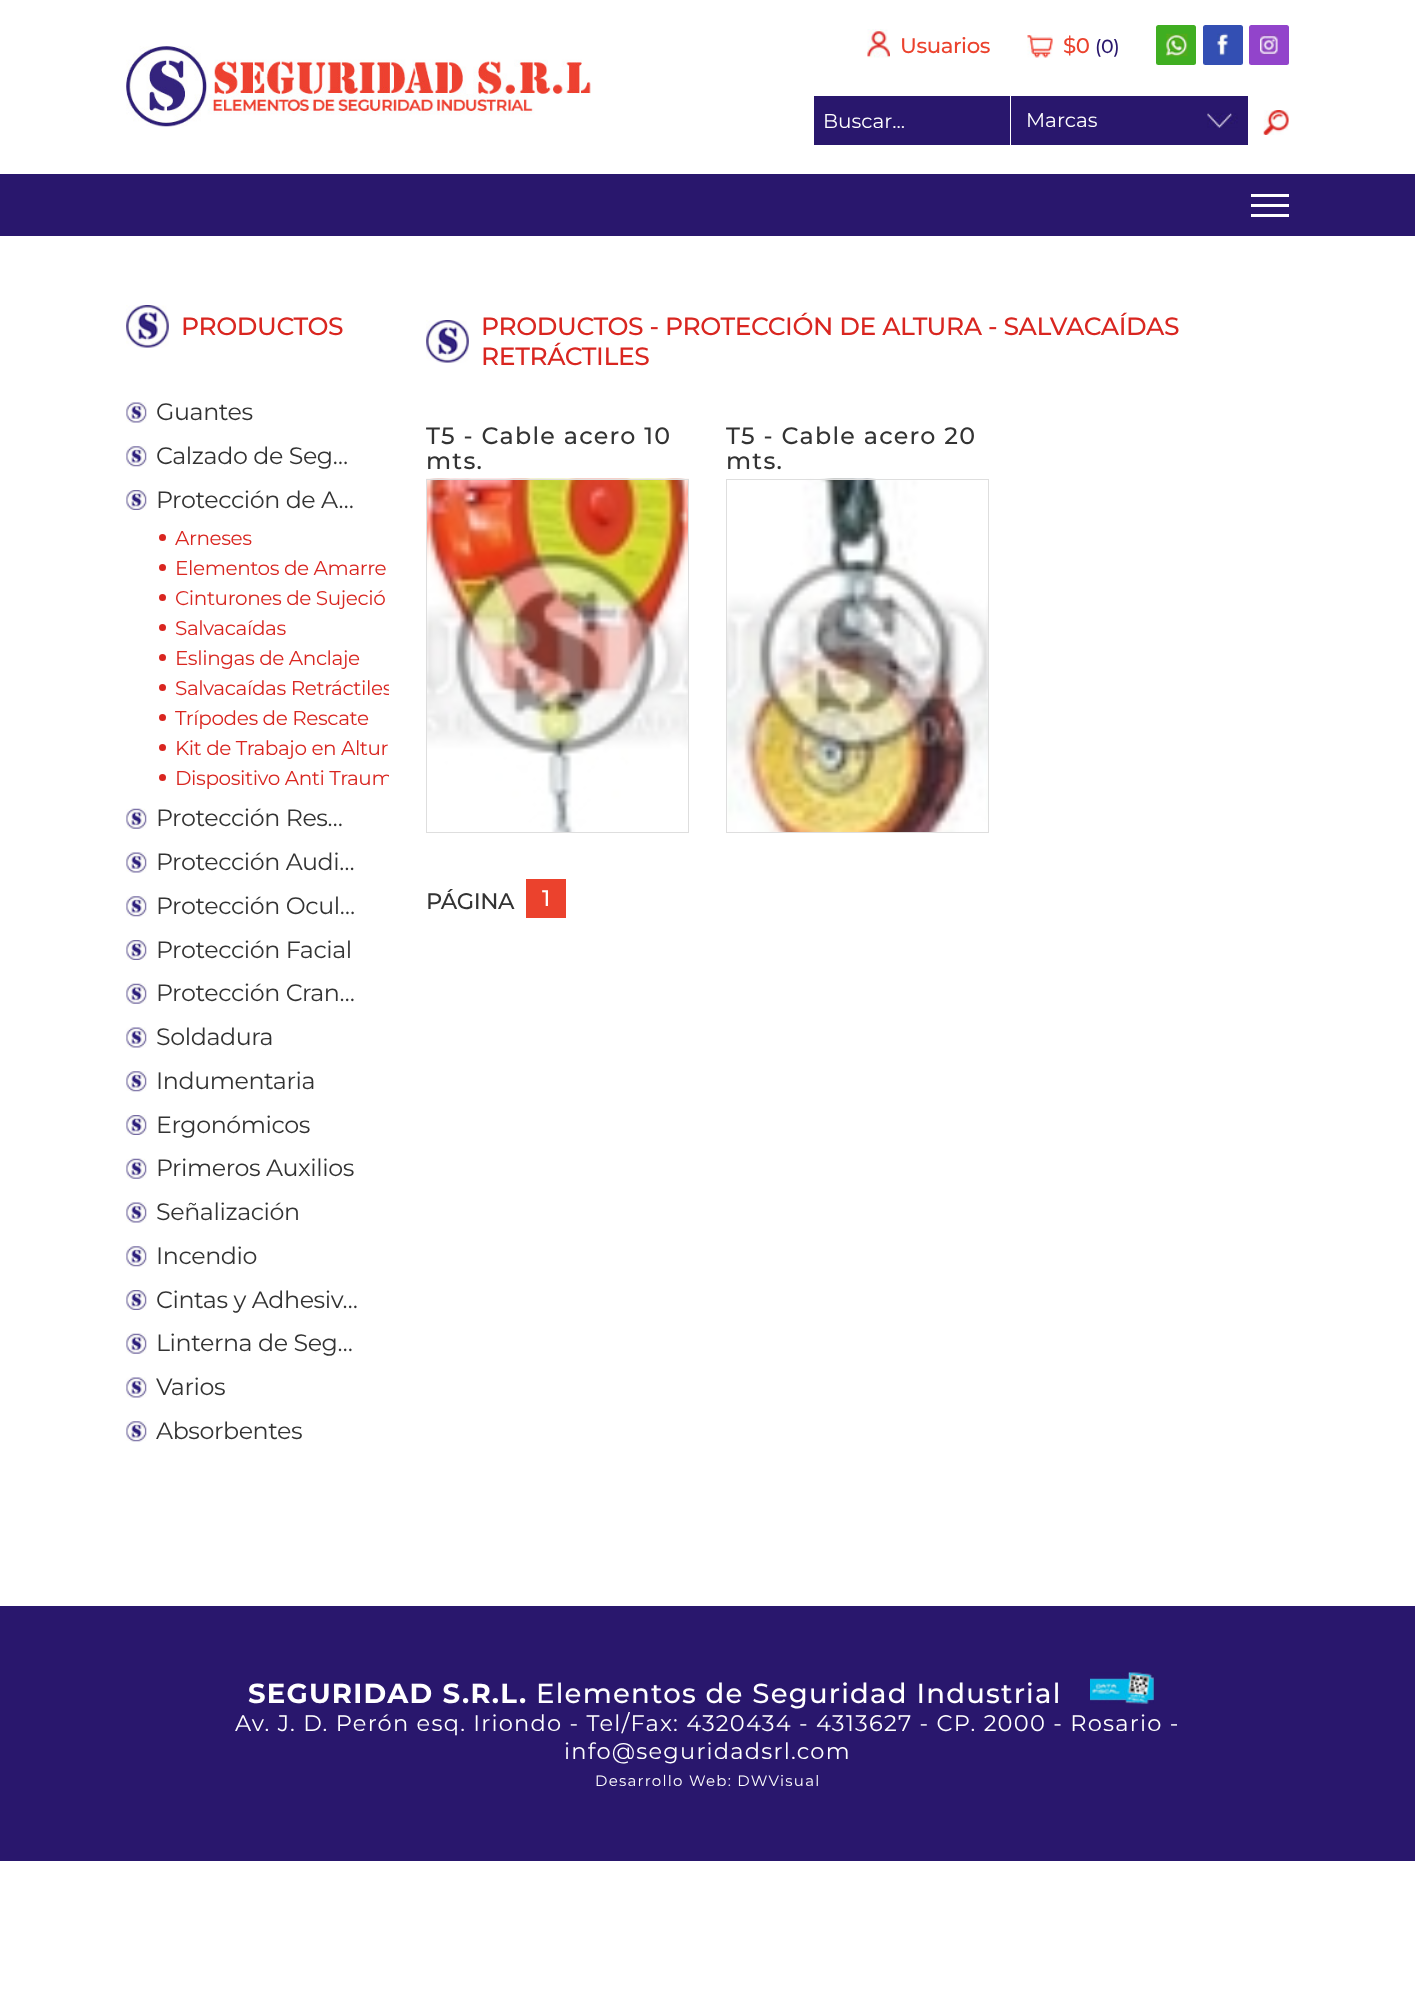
<?xml version="1.0" encoding="UTF-8"?>
<svg xmlns="http://www.w3.org/2000/svg" width="1415" height="2013">
    <defs>
        <clipPath id="clip1"><rect x="126" y="394" width="263" height="1062"/></clipPath>
    </defs>
    <rect width="100%" height="100%" fill="#FFFFFF"/>
    <image x="126" y="46" width="465" height="81" href="img_01.png"/>
    <image x="867" y="29" width="23" height="29" href="img_02.png"/>
    <text x="900" y="53" font-family="Montserrat" font-size="21.25" font-weight="500" letter-spacing="-0.4" fill="#EB422D">Usuarios</text>
    <image x="1027" y="35" width="26" height="23" href="img_03.png"/>
    <text x="1063" y="53" font-family="Montserrat" font-size="21.25" font-weight="500" letter-spacing="-0.4" fill="#EB422D">$0</text>
    <text x="1095" y="53" font-family="Montserrat" font-size="19" font-weight="500" letter-spacing="-0.4" fill="#29176D">(0)</text>
    <rect x="1156" y="25" width="40" height="40" rx="2.5" fill="#3FAE21"/>
    <image x="1166" y="33" width="22" height="24" href="img_04.png"/>
    <rect x="1203" y="25" width="40" height="40" rx="2.5" fill="#334FB3"/>
    <image x="1217" y="33" width="11" height="23" href="img_05.png"/>
    <rect x="1249" y="25" width="40" height="40" rx="2.5" fill="#9244CB"/>
    <image x="1260" y="33" width="18" height="23" href="img_06.png"/>
    <rect x="814" y="96" width="196" height="49" fill="#29176D"/>
    <text x="823" y="128" font-family="Montserrat" font-size="20" fill="#FFFFFF">Buscar...</text>
    <rect x="1011" y="96" width="237" height="49" fill="#29176D"/>
    <image x="1207" y="113" width="31" height="15" href="img_07.png"/>
    <text x="1026" y="127" font-family="Montserrat" font-size="20" fill="#FFFFFF">Marcas</text>
    <image x="1263" y="110" width="26" height="25" href="img_08.png"/>
    <rect x="0" y="174" width="1415" height="62" fill="#29176D"/>
    <rect x="1251" y="194" width="38" height="3" fill="#FFFFFF"/>
    <rect x="1251" y="204" width="38" height="3" fill="#FFFFFF"/>
    <rect x="1251" y="214" width="38" height="3" fill="#FFFFFF"/>
    <image x="126" y="305" width="43" height="43" href="img_09.png"/>
    <text x="181" y="335" font-family="Montserrat" font-size="25" font-weight="500" letter-spacing="-0.4" fill="#D92620">PRODUCTOS</text>
    <image x="126" y="402" width="21" height="21" href="img_10.png"/>
    <text x="156" y="420" font-family="Montserrat" font-size="23.75" letter-spacing="-0.4" fill="#333333">Guantes</text>
    <image x="126" y="446" width="21" height="21" href="img_11.png"/>
    <text x="156" y="464" font-family="Montserrat" font-size="23.75" letter-spacing="-0.4" fill="#333333">Calzado de Seg…</text>
    <image x="126" y="490" width="21" height="20" href="img_12.png"/>
    <text x="156" y="508" font-family="Montserrat" font-size="23.75" letter-spacing="-0.4" fill="#333333">Protección de A…</text>
    <circle cx="162.5" cy="537.5" r="3.5" fill="#D92620"/>
    <text x="175" y="545" font-family="Montserrat" font-size="20" letter-spacing="-0.4" fill="#D92620">Arneses</text>
    <circle cx="162.5" cy="567.5" r="3.5" fill="#D92620"/>
    <text x="175" y="575" font-family="Montserrat" font-size="20" letter-spacing="-0.4" fill="#D92620">Elementos de Amarre</text>
    <circle cx="162.5" cy="597.5" r="3.5" fill="#D92620"/>
    <text x="175" y="605" font-family="Montserrat" font-size="20" letter-spacing="-0.4" fill="#D92620">Cinturones de Sujeció</text>
    <circle cx="162.5" cy="627.5" r="3.5" fill="#D92620"/>
    <text x="175" y="635" font-family="Montserrat" font-size="20" letter-spacing="-0.4" fill="#D92620">Salvacaídas</text>
    <circle cx="162.5" cy="657.5" r="3.5" fill="#D92620"/>
    <text x="175" y="665" font-family="Montserrat" font-size="20" letter-spacing="-0.4" fill="#D92620">Eslingas de Anclaje</text>
    <circle cx="162.5" cy="687.5" r="3.5" fill="#D92620"/>
    <g clip-path="url(#clip1)">
        <text x="175" y="695" font-family="Montserrat" font-size="20" letter-spacing="-0.4" fill="#D92620">Salvacaídas Retráctiles</text>
    </g>
    <circle cx="162.5" cy="717.5" r="3.5" fill="#D92620"/>
    <text x="175" y="725" font-family="Montserrat" font-size="20" letter-spacing="-0.4" fill="#D92620">Trípodes de Rescate</text>
    <circle cx="162.5" cy="747.5" r="3.5" fill="#D92620"/>
    <text x="175" y="755" font-family="Montserrat" font-size="20" letter-spacing="-0.4" fill="#D92620">Kit de Trabajo en Altur</text>
    <circle cx="162.5" cy="777.5" r="3.5" fill="#D92620"/>
    <g clip-path="url(#clip1)">
        <text x="175" y="785" font-family="Montserrat" font-size="20" letter-spacing="-0.4" fill="#D92620">Dispositivo Anti Traum</text>
    </g>
    <image x="126" y="808" width="21" height="21" href="img_13.png"/>
    <text x="156" y="826" font-family="Montserrat" font-size="23.75" letter-spacing="-0.4" fill="#333333">Protección Res…</text>
    <image x="126" y="852" width="21" height="21" href="img_10.png"/>
    <text x="156" y="870" font-family="Montserrat" font-size="23.75" letter-spacing="-0.4" fill="#333333">Protección Audi…</text>
    <image x="126" y="896" width="21" height="21" href="img_11.png"/>
    <text x="156" y="914" font-family="Montserrat" font-size="23.75" letter-spacing="-0.4" fill="#333333">Protección Ocul…</text>
    <image x="126" y="940" width="21" height="20" href="img_12.png"/>
    <text x="156" y="958" font-family="Montserrat" font-size="23.75" letter-spacing="-0.4" fill="#333333">Protección Facial</text>
    <image x="126" y="983" width="21" height="21" href="img_13.png"/>
    <text x="156" y="1001" font-family="Montserrat" font-size="23.75" letter-spacing="-0.4" fill="#333333">Protección Cran…</text>
    <image x="126" y="1027" width="21" height="21" href="img_10.png"/>
    <text x="156" y="1045" font-family="Montserrat" font-size="23.75" letter-spacing="-0.4" fill="#333333">Soldadura</text>
    <image x="126" y="1071" width="21" height="21" href="img_11.png"/>
    <text x="156" y="1089" font-family="Montserrat" font-size="23.75" letter-spacing="-0.4" fill="#333333">Indumentaria</text>
    <image x="126" y="1115" width="21" height="20" href="img_12.png"/>
    <text x="156" y="1133" font-family="Montserrat" font-size="23.75" letter-spacing="-0.4" fill="#333333">Ergonómicos</text>
    <image x="126" y="1158" width="21" height="21" href="img_14.png"/>
    <text x="156" y="1176" font-family="Montserrat" font-size="23.75" letter-spacing="-0.4" fill="#333333">Primeros Auxilios</text>
    <image x="126" y="1202" width="21" height="21" href="img_10.png"/>
    <text x="156" y="1220" font-family="Montserrat" font-size="23.75" letter-spacing="-0.4" fill="#333333">Señalización</text>
    <image x="126" y="1246" width="21" height="21" href="img_11.png"/>
    <text x="156" y="1264" font-family="Montserrat" font-size="23.75" letter-spacing="-0.4" fill="#333333">Incendio</text>
    <image x="126" y="1290" width="21" height="20" href="img_12.png"/>
    <text x="156" y="1308" font-family="Montserrat" font-size="23.75" letter-spacing="-0.4" fill="#333333">Cintas y Adhesiv…</text>
    <image x="126" y="1333" width="21" height="21" href="img_13.png"/>
    <text x="156" y="1351" font-family="Montserrat" font-size="23.75" letter-spacing="-0.4" fill="#333333">Linterna de Seg…</text>
    <image x="126" y="1377" width="21" height="21" href="img_10.png"/>
    <text x="156" y="1395" font-family="Montserrat" font-size="23.75" letter-spacing="-0.4" fill="#333333">Varios</text>
    <image x="126" y="1421" width="21" height="21" href="img_11.png"/>
    <text x="156" y="1439" font-family="Montserrat" font-size="23.75" letter-spacing="-0.4" fill="#333333">Absorbentes</text>
    <image x="426" y="320" width="43" height="43" href="img_09.png"/>
    <text font-family="Montserrat" font-size="25" font-weight="500" letter-spacing="-0.4" fill="#D92620">
        <tspan x="481" y="335">PRODUCTOS - PROTECCIÓN DE ALTURA - SALVACAÍDAS</tspan>
        <tspan x="481" y="365">RETRÁCTILES</tspan>
    </text>
    <text font-family="Montserrat" font-size="23.75" font-weight="500" letter-spacing="1.25" fill="#333333">
        <tspan x="426" y="444">T5 - Cable acero 10</tspan>
        <tspan x="426" y="469">mts.</tspan>
    </text>
    <image x="426" y="478" width="263" height="354" href="img_15.png"/>
    <rect x="426.5" y="479.5" width="262" height="353" fill="none" stroke="#DEDEDE"/>
    <text font-family="Montserrat" font-size="23.75" font-weight="500" letter-spacing="1.25" fill="#333333">
        <tspan x="726" y="444">T5 - Cable acero 20</tspan>
        <tspan x="726" y="469">mts.</tspan>
    </text>
    <image x="726" y="478" width="263" height="354" href="img_16.png"/>
    <rect x="726.5" y="479.5" width="262" height="353" fill="none" stroke="#DEDEDE"/>
    <text x="426" y="909" font-family="Montserrat" font-size="22.5" font-weight="500" letter-spacing="-0.4" fill="#333333">PÁGINA</text>
    <rect x="526" y="879" width="40" height="39" fill="#EB422D"/>
    <text x="542" y="906" font-family="Montserrat" font-size="22.5" font-weight="500" letter-spacing="-0.4" fill="#FFFFFF">1</text>
    <rect x="0" y="1606" width="1415" height="255" fill="#29176D"/>
    <text x="248" y="1703" font-family="Montserrat" font-size="27.5" font-weight="700" letter-spacing="1.25" fill="#FFFFFF">SEGURIDAD S.R.L.</text>
    <text x="536" y="1703" font-family="Montserrat" font-size="27.5" font-weight="500" letter-spacing="1.25" fill="#FFFFFF">Elementos de Seguridad Industrial</text>
    <image x="1090" y="1672" width="64" height="32" href="img_17.png"/>
    <text x="235" y="1731" font-family="Montserrat" font-size="22.5" letter-spacing="1.25" fill="#FFFFFF">Av. J. D. Perón esq. Iriondo - Tel/Fax: 4320434 - 4313627 - CP. 2000 - Rosario -</text>
    <text x="564" y="1759" font-family="Montserrat" font-size="22.5" letter-spacing="1.25" fill="#FFFFFF">info@seguridadsrl.com</text>
    <text x="595" y="1786" font-family="Montserrat" font-size="15" letter-spacing="1.25" fill="#FFFFFF">Desarrollo Web: DWVisual</text>
</svg>
